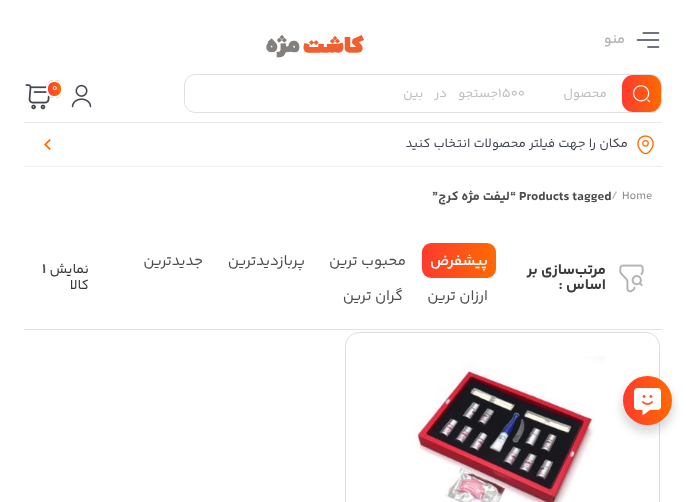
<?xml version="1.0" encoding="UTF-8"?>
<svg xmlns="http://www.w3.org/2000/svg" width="686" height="502">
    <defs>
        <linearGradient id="g1" gradientUnits="userSpaceOnUse" x1="622" y1="94" x2="661" y2="94"><stop offset="0" stop-color="#FF3A30"/><stop offset="1" stop-color="#FF6A00"/></linearGradient>
        <clipPath id="clip1"><rect x="46" y="80" width="17" height="18" rx="8"/></clipPath>
        <linearGradient id="g2" gradientUnits="userSpaceOnUse" x1="48" y1="89" x2="61" y2="89"><stop offset="0" stop-color="#FF3A30"/><stop offset="1" stop-color="#FF6A00"/></linearGradient>
        <linearGradient id="g3" gradientUnits="userSpaceOnUse" x1="422" y1="261" x2="496" y2="261"><stop offset="0" stop-color="#FF3A30"/><stop offset="1" stop-color="#FF6A00"/></linearGradient>
        <filter id="blur1" x="-50%" y="-200%" width="200%" height="500%"><feGaussianBlur stdDeviation="4"/></filter>
        <linearGradient id="g4" gradientUnits="userSpaceOnUse" x1="623" y1="401" x2="672" y2="401"><stop offset="0" stop-color="#FF3A30"/><stop offset="1" stop-color="#FF6A00"/></linearGradient>
    </defs>
    <rect width="100%" height="100%" fill="#FFFFFF"/>
    <image x="636" y="32" width="24" height="16" href="img_01.png"/>
    <text x="625" y="43" font-family="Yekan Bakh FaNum" font-size="14" font-weight="600" direction="rtl" fill="#B4B4B4">منو</text>
    <image x="266" y="35" width="98" height="23" href="img_02.png"/>
    <rect x="24" y="122" width="638" height="1" fill="#EBEBEF"/>
    <rect x="184.5" y="74.5" width="477" height="38" rx="10.5" fill="none" stroke="#E0E0E0"/>
    <rect x="622" y="75" width="39" height="37" rx="11" fill="url(#g1)"/>
    <image x="633" y="85" width="17" height="18" href="img_03.png"/>
    <rect x="185" y="83" width="1" height="22" fill="#FFFFFF"/>
    <text x="607" y="97" font-family="Yekan Bakh FaNum" font-size="13" direction="rtl" fill="#BEBEBE">محصول</text>
    <text x="498" y="97" font-family="Yekan Bakh FaNum" font-size="13" fill="#BEBEBE">1500</text>
    <text x="498" y="97" word-spacing="8" font-family="Yekan Bakh FaNum" font-size="13" direction="rtl" fill="#BEBEBE">جستجو در بین</text>
    <image x="71" y="84" width="21" height="24" href="img_04.png"/>
    <image x="25" y="84" width="25" height="26" href="img_05.png"/>
    <g clip-path="url(#clip1)">
        <rect x="48" y="80" width="13" height="18" fill="url(#g2)"/>
    </g>
    <rect x="47" y="81" width="15" height="16" rx="7" fill="none" stroke="#FFFFFF" stroke-width="2"/>
    <text x="52" y="91" font-family="Yekan Bakh FaNum" font-size="10" fill="#FFFFFF">0</text>
    <rect x="24" y="166" width="638" height="1" fill="#EEEEEE"/>
    <image x="637" y="135" width="17" height="20" href="img_06.png"/>
    <text x="628" y="147" font-family="Yekan Bakh FaNum" font-size="13" direction="rtl" fill="#424750">مکان را جهت فیلتر محصولات انتخاب کنید</text>
    <image x="44" y="139" width="7" height="11" href="img_07.png"/>
    <text x="622" y="199" font-family="Yekan Bakh FaNum" font-size="12" fill="#898D92">Home</text>
    <text x="611" y="199" font-family="Yekan Bakh FaNum" font-size="12" font-weight="700" fill="#C8C4C4">/</text>
    <text x="519" y="200" font-family="Yekan Bakh FaNum" font-size="13" font-weight="700" fill="#4D4D4D">Products tagged</text>
    <text x="516" y="200" font-family="Yekan Bakh FaNum" font-size="13" font-weight="700" direction="rtl" fill="#4D4D4D">“لیفت مژه کرج”</text>
    <rect x="24" y="329" width="638" height="1" fill="#E3E3E3"/>
    <image x="619" y="264" width="25" height="29" href="img_08.png"/>
    <text font-family="Yekan Bakh FaNum" font-size="15" font-weight="700" direction="rtl" fill="#3B3B3B">
        <tspan x="606" y="274">مرتب‌سازی بر</tspan>
        <tspan x="606" y="289">اساس :</tspan>
    </text>
    <rect x="422" y="243" width="74" height="35" rx="9" fill="url(#g3)"/>
    <text x="488" y="265" font-family="Yekan Bakh FaNum" font-size="15" font-weight="600" direction="rtl" fill="#FFFFFF">پیشفرض</text>
    <text x="406" y="265" font-family="Yekan Bakh FaNum" font-size="15" direction="rtl" fill="#4D4D4D">محبوب ترین</text>
    <text x="305" y="265" font-family="Yekan Bakh FaNum" font-size="15" direction="rtl" fill="#4D4D4D">پربازدیدترین</text>
    <text x="203" y="265" font-family="Yekan Bakh FaNum" font-size="15" direction="rtl" fill="#4D4D4D">جدیدترین</text>
    <text x="488" y="300" font-family="Yekan Bakh FaNum" font-size="15" direction="rtl" fill="#4D4D4D">ارزان ترین</text>
    <text x="403" y="300" font-family="Yekan Bakh FaNum" font-size="15" direction="rtl" fill="#4D4D4D">گران ترین</text>
    <text x="89" y="273" font-family="Yekan Bakh FaNum" font-size="14" direction="rtl" fill="#353535">نمایش</text>
    <text x="42" y="273" font-family="Yekan Bakh FaNum" font-size="14" font-weight="700" fill="#555555">1</text>
    <text x="89" y="289" font-family="Yekan Bakh FaNum" font-size="14" direction="rtl" fill="#353535">کالا</text>
    <rect x="345.5" y="332.5" width="314" height="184" rx="13.5" fill="none" stroke="#DEDEE1"/>
    <image x="413" y="356" width="192" height="146" href="img_09.png"/>
    <rect x="621" y="380" width="53" height="53" rx="26.5" fill="#000000" fill-opacity="0.14" filter="url(#blur1)"/>
    <circle cx="647.5" cy="400.5" r="24.5" fill="url(#g4)"/>
    <image x="634" y="388" width="27" height="27" href="img_10.png"/>
</svg>
